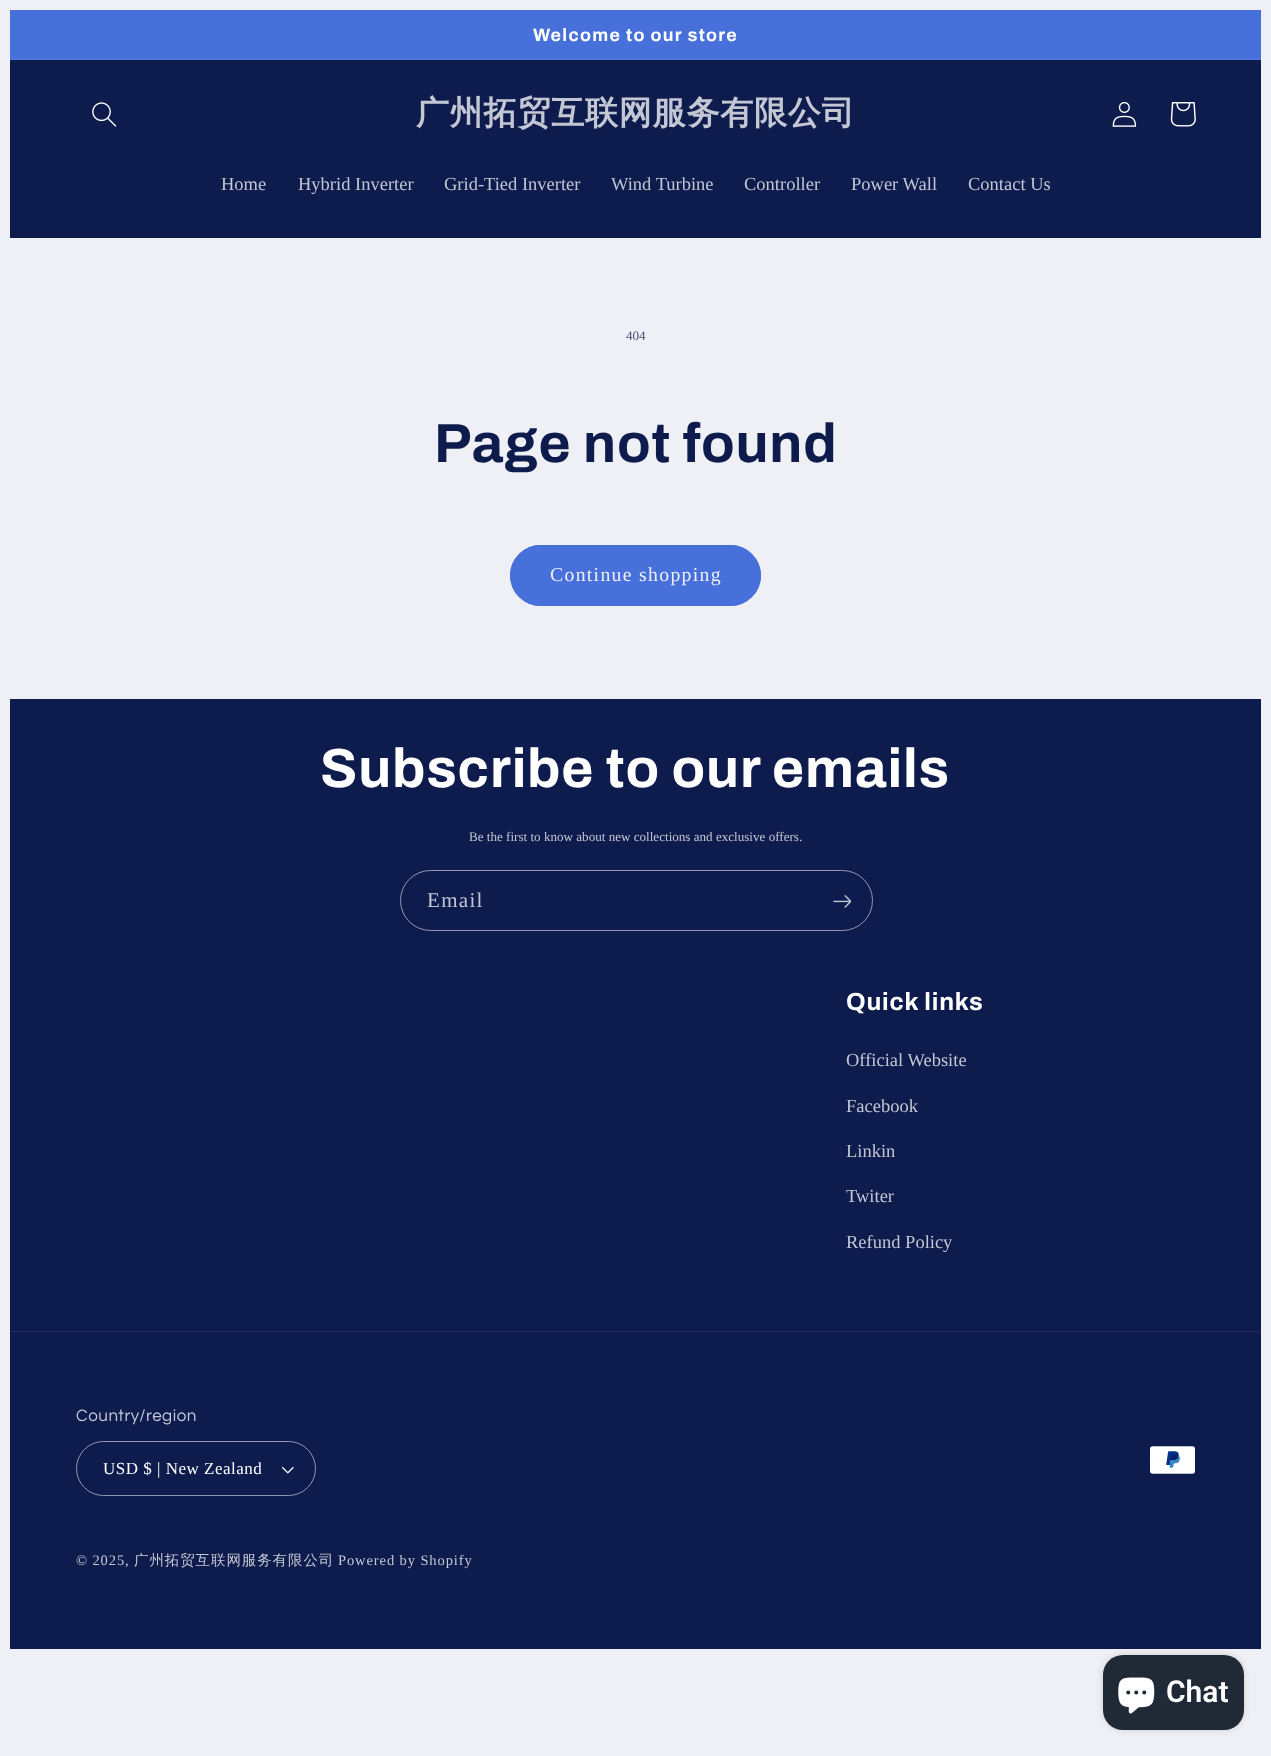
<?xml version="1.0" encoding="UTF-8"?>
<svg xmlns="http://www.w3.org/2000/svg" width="1271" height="1756">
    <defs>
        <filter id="blur1" x="-50%" y="-200%" width="200%" height="500%"><feGaussianBlur stdDeviation="3"/></filter>
    </defs>
    <rect width="100%" height="100%" fill="#EFF0F5"/>
    <rect x="10" y="10" width="1251" height="49" fill="#4770DB"/>
    <rect x="10" y="59" width="1251" height="1" fill="#567BDE"/>
    <text x="533" y="41" font-family="Archivo" font-size="17.9" font-weight="700" letter-spacing="1.3" fill="#FFFFFF">Welcome to our store</text>
    <rect x="10" y="60" width="1251" height="178" fill="#0E1B4D"/>
    <image x="92" y="102" width="25" height="25" href="img_01.png"/>
    <text x="416" y="124" font-family="WenQuanYi Zen Hei" font-size="33" font-weight="700" letter-spacing="0.8" fill="#C3C6D3">广州拓贸互联网服务有限公司</text>
    <image x="1112" y="101" width="25" height="26" href="img_02.png"/>
    <image x="1170" y="102" width="26" height="25" href="img_03.png"/>
    <text x="221" y="190" font-family="Liberation Serif" font-size="18.5" fill="#C3C6D3">Home</text>
    <text x="298" y="190" font-family="Liberation Serif" font-size="18.5" fill="#C3C6D3">Hybrid Inverter</text>
    <text x="444" y="190" font-family="Liberation Serif" font-size="18.5" fill="#C3C6D3">Grid-Tied Inverter</text>
    <text x="611" y="190" font-family="Liberation Serif" font-size="18.5" fill="#C3C6D3">Wind Turbine</text>
    <text x="744" y="190" font-family="Liberation Serif" font-size="18.5" fill="#C3C6D3">Controller</text>
    <text x="851" y="190" font-family="Liberation Serif" font-size="18.5" fill="#C3C6D3">Power Wall</text>
    <text x="968" y="190" font-family="Liberation Serif" font-size="18.5" fill="#C3C6D3">Contact Us</text>
    <text x="626" y="340" font-family="Liberation Serif" font-size="13.1" fill="#465077">404</text>
    <text x="434" y="462" font-family="Archivo" font-size="55" font-weight="700" letter-spacing="0.8" fill="#0E1B4D">Page not found</text>
    <rect x="510" y="545" width="251" height="61" rx="30.5" fill="#4770DB"/>
    <rect x="510.5" y="545.5" width="250" height="60" rx="30" fill="none" stroke="#4770DB"/>
    <text x="550" y="581" font-family="Liberation Serif" font-size="19.75" letter-spacing="1.3" fill="#EFF0F5">Continue shopping</text>
    <rect x="10" y="699" width="1251" height="950" fill="#0E1B4D"/>
    <text x="320" y="787" font-family="Archivo" font-size="55" font-weight="700" letter-spacing="0.8" fill="#FFFFFF">Subscribe to our emails</text>
    <text x="469" y="841" font-family="Liberation Serif" font-size="13.1" fill="#C3C6D3">Be the first to know about new collections and exclusive offers.</text>
    <rect x="400.5" y="870.5" width="472" height="60" rx="30" fill="none" stroke="#9398AF"/>
    <text x="427" y="907" font-family="Liberation Serif" font-size="21" letter-spacing="1.3" fill="#C3C6D3">Email</text>
    <image x="833" y="895" width="18" height="13" href="img_04.png"/>
    <text x="846" y="1010" font-family="Archivo" font-size="24.75" font-weight="700" letter-spacing="0.8" fill="#FFFFFF">Quick links</text>
    <text x="846" y="1066" font-family="Liberation Serif" font-size="18.5" fill="#C3C6D3">Official Website</text>
    <text x="846" y="1112" font-family="Liberation Serif" font-size="18.5" fill="#C3C6D3">Facebook</text>
    <text x="846" y="1157" font-family="Liberation Serif" font-size="18.5" fill="#C3C6D3">Linkin</text>
    <text x="846" y="1202" font-family="Liberation Serif" font-size="18.5" fill="#C3C6D3">Twiter</text>
    <text x="846" y="1248" font-family="Liberation Serif" font-size="18.5" fill="#C3C6D3">Refund Policy</text>
    <rect x="10" y="1331" width="1251" height="1" fill="#212D5B"/>
    <text x="76" y="1421" font-family="Questrial" font-size="17" letter-spacing="0.5" fill="#C3C6D3">Country/region</text>
    <image x="281" y="1467" width="13" height="7" href="img_05.png"/>
    <rect x="76.5" y="1441.5" width="239" height="54" rx="27" fill="none" stroke="#9398AF"/>
    <text x="103" y="1474" font-family="Liberation Serif" font-size="17" letter-spacing="0.5" fill="#FFFFFF">USD $ | New Zealand</text>
    <image x="1149" y="1445" width="47" height="30" href="img_06.png"/>
    <text x="76" y="1565" font-family="Liberation Serif" font-size="14.5" letter-spacing="0.9" fill="#C3C6D3">© 2025,</text>
    <text x="134" y="1565" font-family="WenQuanYi Zen Hei" font-size="14.5" font-weight="500" letter-spacing="0.9" fill="#C3C6D3">广州拓贸互联网服务有限公司</text>
    <text x="338" y="1565" font-family="Liberation Serif" font-size="14.5" letter-spacing="0.9" fill="#C3C6D3">Powered by Shopify</text>
    <rect x="1103" y="1655" width="141" height="75" rx="20" fill="#000000" fill-opacity="0.15" filter="url(#blur1)"/>
    <rect x="1103" y="1655" width="141" height="75" rx="20" fill="#202A36"/>
    <image x="1118" y="1677" width="37" height="37" href="img_07.png"/>
    <text x="1166" y="1702" font-family="Roboto" font-size="30" font-weight="600" fill="#FFFFFF">Chat</text>
</svg>
